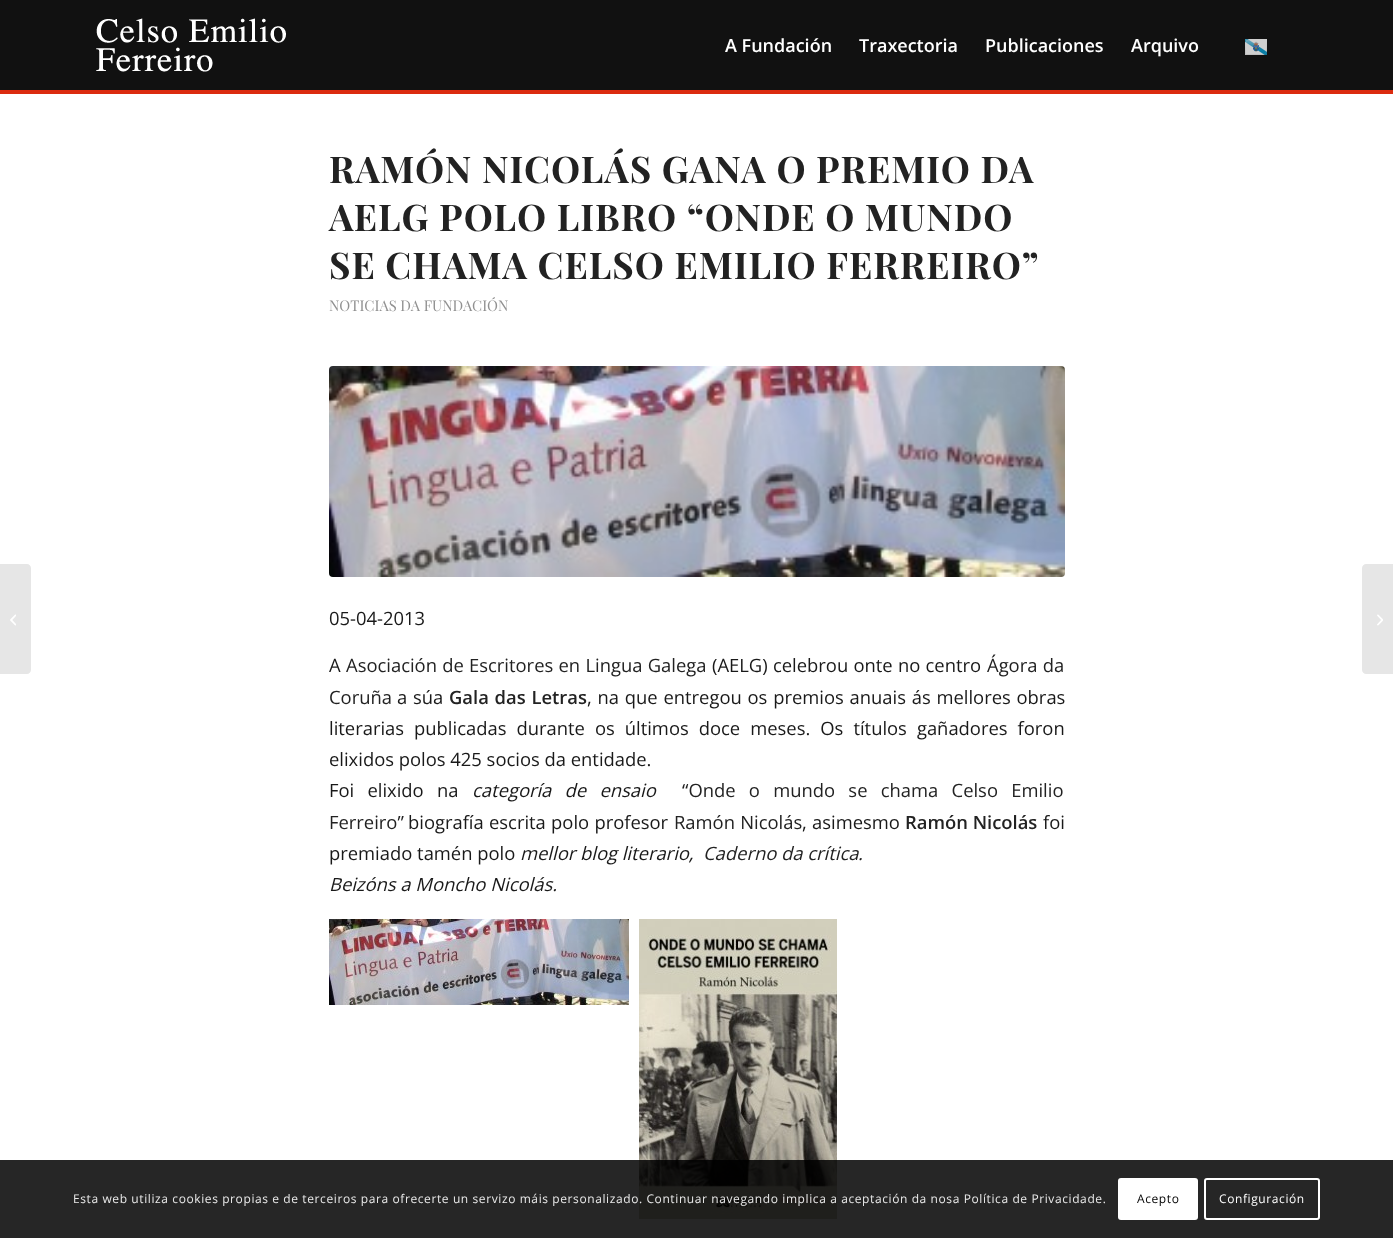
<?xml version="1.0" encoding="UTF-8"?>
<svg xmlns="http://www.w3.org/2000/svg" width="1393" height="1238">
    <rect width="100%" height="100%" fill="#FFFFFF"/>
    <rect x="0" y="0" width="1393" height="90" fill="#111111"/>
    <rect x="0" y="90" width="1393" height="4" fill="#DB2B0F"/>
    <image x="96" y="18" width="190" height="54" href="img_01.png"/>
    <text x="725" y="52" font-family="Open Sans" font-size="18" font-weight="600" fill="#FFFFFF">A Fundación</text>
    <text x="859" y="52" font-family="Open Sans" font-size="18" font-weight="600" fill="#FFFFFF">Traxectoria</text>
    <text x="985" y="52" font-family="Open Sans" font-size="18" font-weight="600" fill="#FFFFFF">Publicaciones</text>
    <text x="1131" y="52" font-family="Open Sans" font-size="18" font-weight="600" fill="#FFFFFF">Arquivo</text>
    <image x="1245" y="39" width="22" height="16" href="img_02.png"/>
    <path d="M 0 564 H 27 C 29 564 31 566 31 568 V 670 C 31 672 29 674 27 674 H 0 Z" fill="#E6E6E6"/>
    <image x="10" y="614" width="6" height="12" href="img_03.png"/>
    <text font-family="Playfair Display" font-size="36.75" font-weight="700" letter-spacing="1" fill="#222222">
        <tspan x="329" y="183">RAMÓN NICOLÁS GANA O PREMIO DA</tspan>
        <tspan x="329" y="231">AELG POLO LIBRO “ONDE O MUNDO</tspan>
        <tspan x="329" y="279">SE CHAMA CELSO EMILIO FERREIRO”</tspan>
    </text>
    <text x="329" y="311" font-family="Playfair Display" font-size="14.75" fill="#919191">NOTICIAS DA FUNDACIÓN</text>
    <image x="329" y="366" width="736" height="211" href="img_04.png"/>
    <text x="329" y="625" font-family="Open Sans" font-size="18.4" fill="#191919">05-04-2013</text>
    <text x="329" y="672" font-family="Open Sans" font-size="18.4" fill="#191919">A</text>
    <text x="346" y="672" word-spacing="0.5" font-family="Open Sans" font-size="18.4" fill="#222222">Asociación de Escritores en Lingua Galega</text>
    <text x="712" y="672" word-spacing="0.5" font-family="Open Sans" font-size="18.4" fill="#191919">(AELG) celebrou onte no centro</text>
    <text x="987" y="672" word-spacing="0.5" font-family="Open Sans" font-size="18.4" fill="#222222">Ágora da</text>
    <text x="329" y="704" font-family="Open Sans" font-size="18.4" fill="#222222">Coruña</text>
    <text x="397" y="704" word-spacing="1" font-family="Open Sans" font-size="18.4" fill="#191919">a súa</text>
    <text x="449" y="704" word-spacing="1" font-family="Open Sans" font-size="18.4" font-weight="600" fill="#222222">Gala das Letras</text>
    <text x="587" y="704" word-spacing="1" font-family="Open Sans" font-size="18.4" fill="#191919">, na que entregou os premios anuais ás mellores obras</text>
    <text font-family="Open Sans" font-size="18.4" fill="#191919">
        <tspan x="329" y="735" word-spacing="5.25">literarias publicadas durante os últimos doce meses. Os títulos gañadores foron</tspan>
        <tspan x="329" y="766">elixidos polos 425 socios da entidade.</tspan>
        <tspan x="329" y="797" word-spacing="8.5">Foi elixido na</tspan>
    </text>
    <text x="472" y="797" word-spacing="8.5" font-family="Open Sans" font-size="18.4" font-style="italic" fill="#191919">categoría de ensaio</text>
    <text x="682" y="797" word-spacing="8.5" font-family="Open Sans" font-size="18.4" fill="#222222">“Onde o mundo se chama Celso Emilio</text>
    <text x="329" y="829" font-family="Open Sans" font-size="18.4" fill="#222222">Ferreiro”</text>
    <text x="408" y="829" word-spacing="0.5" font-family="Open Sans" font-size="18.4" fill="#191919">biografía escrita polo profesor</text>
    <text x="674" y="829" word-spacing="0.5" font-family="Open Sans" font-size="18.4" fill="#222222">Ramón Nicolás</text>
    <text x="802" y="829" word-spacing="0.5" font-family="Open Sans" font-size="18.4" fill="#191919">, asimesmo</text>
    <text x="905" y="829" font-family="Open Sans" font-size="18.4" font-weight="600" fill="#222222">Ramón Nicolás</text>
    <text x="1043" y="829" font-family="Open Sans" font-size="18.4" fill="#191919">foi</text>
    <text x="329" y="860" font-family="Open Sans" font-size="18.4" fill="#191919">premiado tamén polo</text>
    <text x="520" y="860" font-family="Open Sans" font-size="18.4" font-style="italic" fill="#191919">mellor blog literario,</text>
    <text x="703" y="860" font-family="Open Sans" font-size="18.4" font-style="italic" fill="#222222">Caderno da crítica</text>
    <text x="858" y="860" font-family="Open Sans" font-size="18.4" font-style="italic" fill="#191919">.</text>
    <text x="329" y="891" font-family="Open Sans" font-size="18.4" font-style="italic" fill="#191919">Beizóns a Moncho Nicolás.</text>
    <image x="329" y="919" width="300" height="86" href="img_05.png"/>
    <image x="639" y="919" width="198" height="300" href="img_06.png"/>
    <path d="M 1366 564 H 1393 V 674 H 1366 C 1364 674 1362 672 1362 670 V 568 C 1362 566 1364 564 1366 564 Z" fill="#E6E6E6"/>
    <image x="1377" y="614" width="6" height="12" href="img_07.png"/>
    <rect x="0" y="1160" width="1393" height="78" fill="#000000" fill-opacity="0.85"/>
    <text x="73" y="1203" font-family="Open Sans" font-size="12" letter-spacing="0.6" fill="#E9E9E9">Esta web utiliza cookies propias e de terceiros para ofrecerte un servizo máis personalizado. Continuar navegando implica a aceptación da nosa Política de Privacidade.</text>
    <rect x="1118" y="1178" width="80" height="42" rx="3" fill="#FFFFFF"/>
    <text x="1137" y="1203" font-family="Open Sans" font-size="12" letter-spacing="0.6" fill="#000000">Acepto</text>
    <rect x="1205" y="1179" width="114" height="40" rx="2" fill="none" stroke="#FFFFFF" stroke-width="2"/>
    <text x="1219" y="1203" font-family="Open Sans" font-size="12" letter-spacing="0.6" fill="#FFFFFF">Configuración</text>
</svg>
